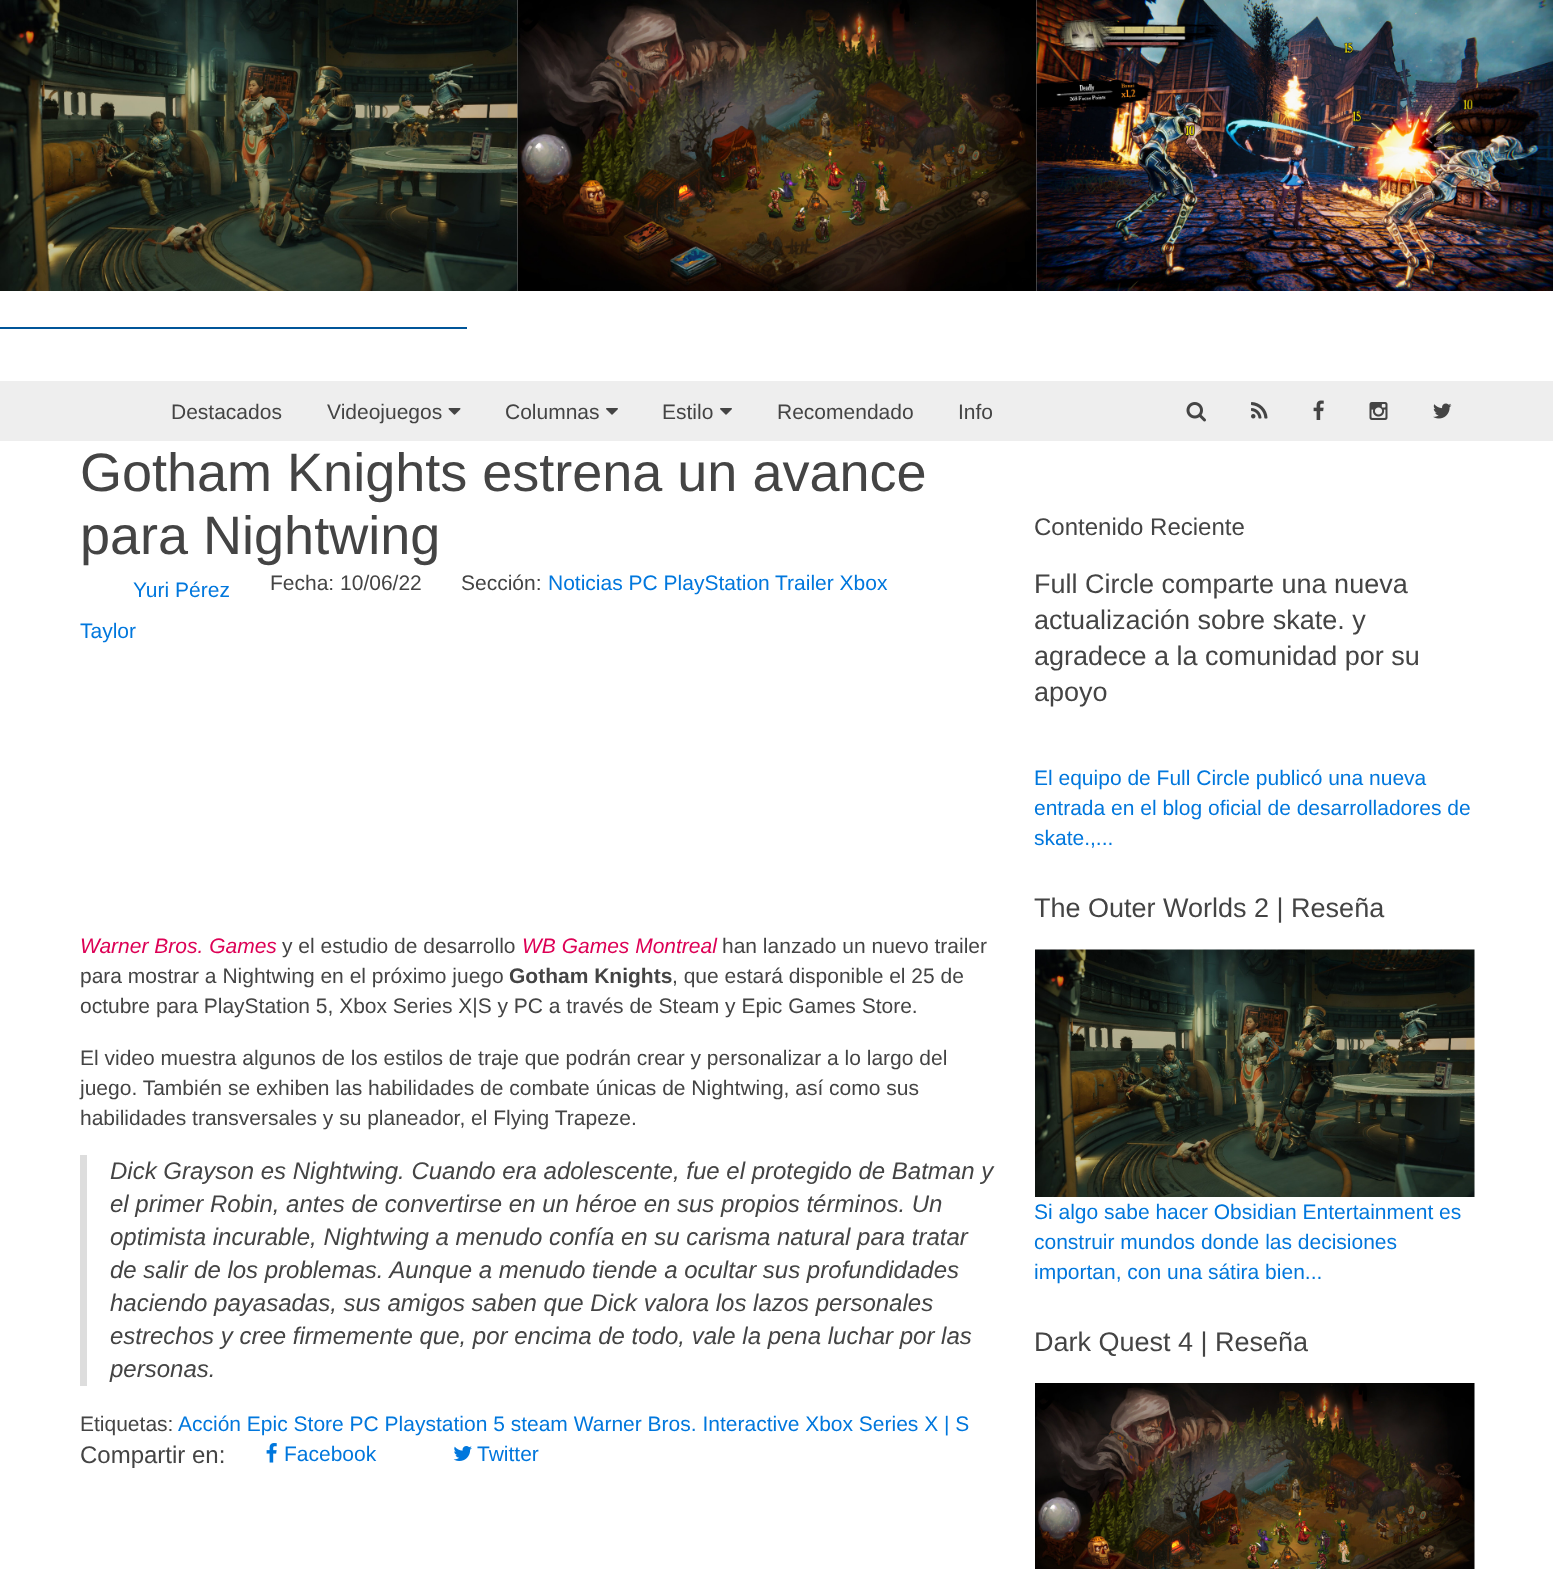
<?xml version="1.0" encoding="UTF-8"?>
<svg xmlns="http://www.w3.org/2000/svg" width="1553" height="1569">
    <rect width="100%" height="100%" fill="#FFFFFF"/>
    <image x="0" y="0" width="518" height="291" href="img_01.png"/>
    <rect x="0" y="327" width="467" height="2" fill="#005599"/>
    <image x="517" y="0" width="520" height="291" href="img_02.png"/>
    <image x="1036" y="0" width="517" height="291" href="img_03.png"/>
    <rect x="0" y="381" width="1553" height="60" fill="#EEEEEE"/>
    <text x="171" y="419" font-family="Liberation Sans" font-size="21" fill="#444444">Destacados</text>
    <text x="327" y="419" font-family="Liberation Sans" font-size="21" fill="#444444">Videojuegos</text>
    <image x="448" y="408" width="13" height="7" href="img_04.png"/>
    <text x="505" y="419" font-family="Liberation Sans" font-size="21" fill="#444444">Columnas</text>
    <image x="606" y="408" width="12" height="7" href="img_05.png"/>
    <text x="662" y="419" font-family="Liberation Sans" font-size="21" fill="#444444">Estilo</text>
    <image x="720" y="408" width="12" height="7" href="img_05.png"/>
    <text x="777" y="419" font-family="Liberation Sans" font-size="21" fill="#444444">Recomendado</text>
    <text x="958" y="419" font-family="Liberation Sans" font-size="21" fill="#444444">Info</text>
    <image x="1186" y="402" width="20" height="20" href="img_06.png"/>
    <image x="1251" y="402" width="17" height="17" href="img_07.png"/>
    <image x="1313" y="400" width="11" height="20" href="img_08.png"/>
    <image x="1369" y="402" width="19" height="18" href="img_09.png"/>
    <image x="1433" y="403" width="19" height="16" href="img_10.png"/>
    <text font-family="Liberation Sans" font-size="54" fill="#444444">
        <tspan x="80" y="491">Gotham Knights estrena un avance</tspan>
        <tspan x="80" y="554">para Nightwing</tspan>
    </text>
    <text x="133" y="597" font-family="Liberation Sans" font-size="21" fill="#0077DD">Yuri Pérez</text>
    <text x="80" y="638" font-family="Liberation Sans" font-size="21" fill="#0077DD">Taylor</text>
    <text x="270" y="590" font-family="Liberation Sans" font-size="21" fill="#444444">Fecha: 10/06/22</text>
    <text x="461" y="590" font-family="Liberation Sans" font-size="21" fill="#444444">Sección:</text>
    <text x="548" y="590" font-family="Liberation Sans" font-size="21" fill="#0077DD">Noticias PC PlayStation</text>
    <text x="775" y="590" font-family="Liberation Sans" font-size="21" fill="#0077DD">Trailer Xbox</text>
    <text x="80" y="953" font-family="Liberation Sans" font-size="21" font-style="italic" fill="#DD0055">Warner Bros. Games</text>
    <text x="282" y="953" font-family="Liberation Sans" font-size="21" fill="#444444">y el estudio de desarrollo</text>
    <text x="522" y="953" font-family="Liberation Sans" font-size="21" font-style="italic" fill="#DD0055">WB Games Montreal</text>
    <text x="722" y="953" font-family="Liberation Sans" font-size="21" fill="#444444">han lanzado un nuevo trailer</text>
    <text x="80" y="983" font-family="Liberation Sans" font-size="21" fill="#444444">para mostrar a Nightwing en el próximo juego</text>
    <text x="509" y="983" font-family="Liberation Sans" font-size="21" font-weight="700" fill="#444444">Gotham Knights</text>
    <text x="672" y="983" font-family="Liberation Sans" font-size="21" fill="#444444">, que estará disponible el 25 de</text>
    <text x="80" y="1013" font-family="Liberation Sans" font-size="21" fill="#444444">octubre para PlayStation 5, Xbox Series X|S y PC a través de Steam y Epic Games Store.</text>
    <text font-family="Liberation Sans" font-size="21" fill="#444444">
        <tspan x="80" y="1065">El video muestra algunos de los estilos de traje que podrán crear y personalizar a lo largo del</tspan>
        <tspan x="80" y="1095">juego. También se exhiben las habilidades de combate únicas de Nightwing, así como sus</tspan>
        <tspan x="80" y="1125">habilidades transversales y su planeador, el Flying Trapeze.</tspan>
    </text>
    <rect x="80" y="1155" width="7" height="231" fill="#DDDDDD"/>
    <text font-family="Liberation Sans" font-size="24" font-style="italic" fill="#444444">
        <tspan x="110" y="1179">Dick Grayson es Nightwing. Cuando era adolescente, fue el protegido de Batman y</tspan>
        <tspan x="110" y="1212">el primer Robin, antes de convertirse en un héroe en sus propios términos. Un</tspan>
        <tspan x="110" y="1245">optimista incurable, Nightwing a menudo confía en su carisma natural para tratar</tspan>
        <tspan x="110" y="1278">de salir de los problemas. Aunque a menudo tiende a ocultar sus profundidades</tspan>
        <tspan x="110" y="1311">haciendo payasadas, sus amigos saben que Dick valora los lazos personales</tspan>
        <tspan x="110" y="1344">estrechos y cree firmemente que, por encima de todo, vale la pena luchar por las</tspan>
        <tspan x="110" y="1377">personas.</tspan>
    </text>
    <text x="80" y="1431" font-family="Liberation Sans" font-size="21" fill="#444444">Etiquetas:</text>
    <text x="178" y="1431" font-family="Liberation Sans" font-size="21" fill="#0077DD">Acción Epic Store PC Playstation 5 steam Warner Bros. Interactive Xbox Series X | S</text>
    <text x="80" y="1463" font-family="Liberation Sans" font-size="24" fill="#444444">Compartir en:</text>
    <image x="266" y="1443" width="11" height="20" href="img_11.png"/>
    <text x="284" y="1461" font-family="Liberation Sans" font-size="21" fill="#0077DD">Facebook</text>
    <image x="453" y="1446" width="19" height="15" href="img_12.png"/>
    <text x="477" y="1461" font-family="Liberation Sans" font-size="21" fill="#0077DD">Twitter</text>
    <text x="1034" y="535" font-family="Liberation Sans" font-size="24" fill="#444444">Contenido Reciente</text>
    <text font-family="Liberation Sans" font-size="27" fill="#444444">
        <tspan x="1034" y="593">Full Circle comparte una nueva</tspan>
        <tspan x="1034" y="629">actualización sobre skate. y</tspan>
        <tspan x="1034" y="665">agradece a la comunidad por su</tspan>
        <tspan x="1034" y="701">apoyo</tspan>
    </text>
    <text font-family="Liberation Sans" font-size="21" fill="#0077DD">
        <tspan x="1034" y="785">El equipo de Full Circle publicó una nueva</tspan>
        <tspan x="1034" y="815">entrada en el blog oficial de desarrolladores de</tspan>
        <tspan x="1034" y="845">skate.,...</tspan>
    </text>
    <text x="1034" y="917" font-family="Liberation Sans" font-size="27" fill="#444444">The Outer Worlds 2 | Reseña</text>
    <image x="1035" y="949" width="440" height="248" href="img_13.png"/>
    <text font-family="Liberation Sans" font-size="21" fill="#0077DD">
        <tspan x="1034" y="1219">Si algo sabe hacer Obsidian Entertainment es</tspan>
        <tspan x="1034" y="1249">construir mundos donde las decisiones</tspan>
        <tspan x="1034" y="1279">importan, con una sátira bien...</tspan>
    </text>
    <text x="1034" y="1351" font-family="Liberation Sans" font-size="27" fill="#444444">Dark Quest 4 | Reseña</text>
    <image x="1035" y="1383" width="440" height="186" href="img_14.png"/>
</svg>
